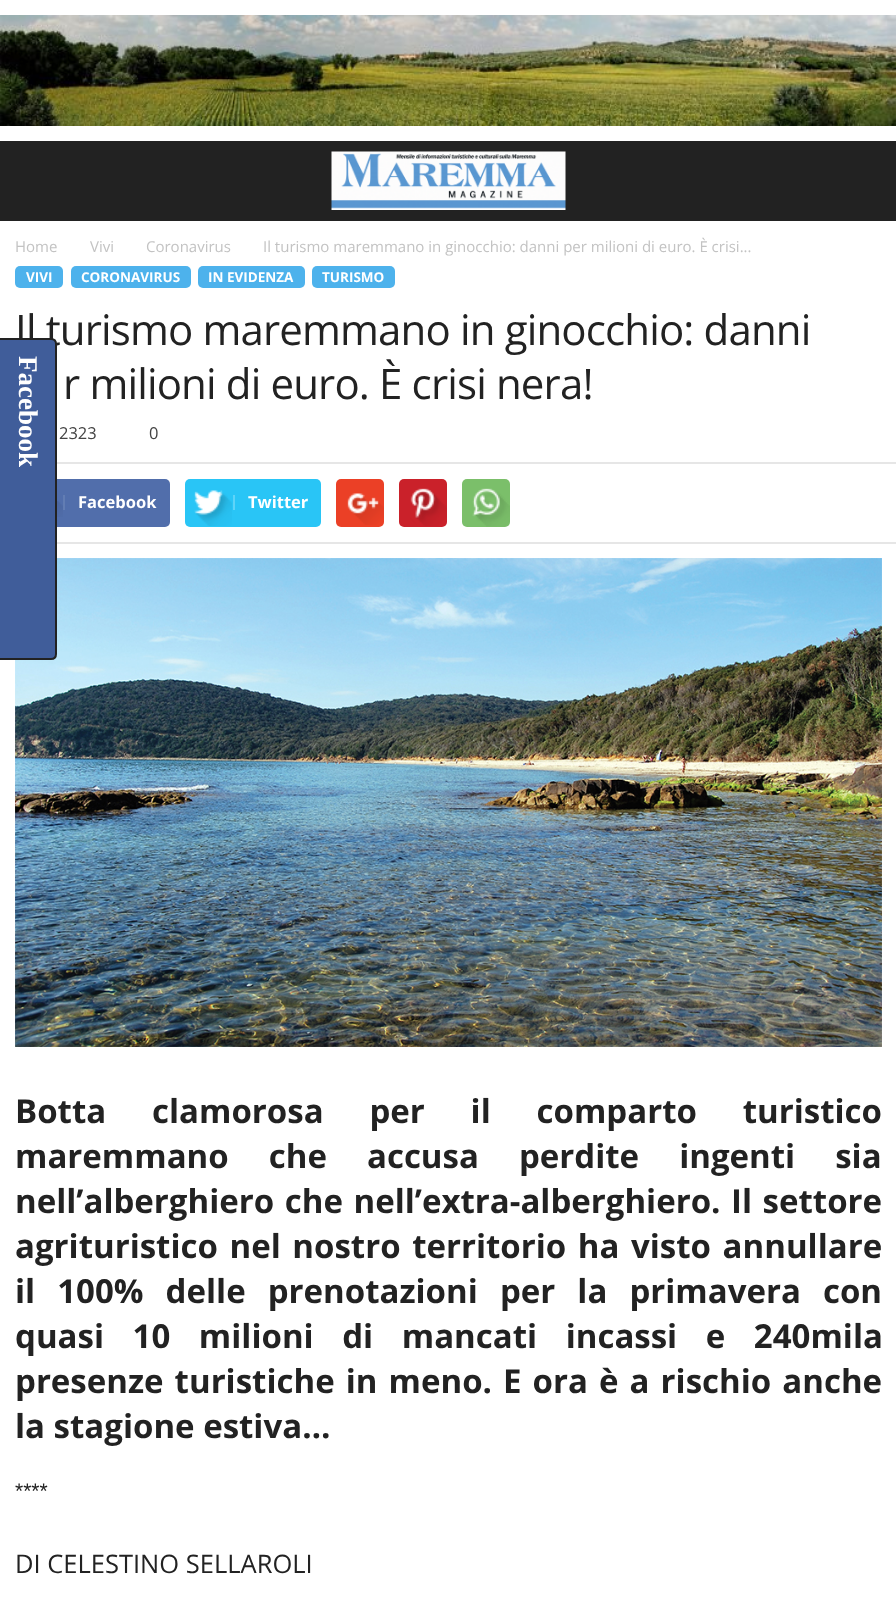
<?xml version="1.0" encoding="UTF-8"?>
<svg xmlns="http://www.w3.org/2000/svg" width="896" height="1606">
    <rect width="100%" height="100%" fill="#FFFFFF"/>
    <image x="0" y="15" width="896" height="111" href="img_01.png"/>
    <rect x="0" y="141" width="896" height="80" fill="#222222"/>
    <image x="331" y="151" width="235" height="59" href="img_02.png"/>
    <text x="15" y="252" font-family="Open Sans" font-size="15" fill="#C3C3C3">Home</text>
    <text x="90" y="252" font-family="Open Sans" font-size="15" fill="#C3C3C3">Vivi</text>
    <text x="146" y="252" font-family="Open Sans" font-size="15" fill="#C3C3C3">Coronavirus</text>
    <text x="263" y="252" font-family="Open Sans" font-size="15" fill="#C3C3C3">Il turismo maremmano in ginocchio: danni per milioni di euro. È crisi...</text>
    <rect x="15" y="266" width="48" height="22" rx="5" fill="#4DB2EC"/>
    <text x="26" y="282" font-family="Open Sans" font-size="13.5" font-weight="700" fill="#FFFFFF">VIVI</text>
    <rect x="71" y="266" width="120" height="22" rx="5" fill="#4DB2EC"/>
    <text x="81" y="282" font-family="Open Sans" font-size="13.5" font-weight="700" fill="#FFFFFF">CORONAVIRUS</text>
    <rect x="198" y="266" width="107" height="22" rx="5" fill="#4DB2EC"/>
    <text x="208" y="282" font-family="Open Sans" font-size="13.5" font-weight="700" fill="#FFFFFF">IN EVIDENZA</text>
    <rect x="312" y="266" width="83" height="22" rx="5" fill="#4DB2EC"/>
    <text x="322" y="282" font-family="Open Sans" font-size="13.5" font-weight="700" fill="#FFFFFF">TURISMO</text>
    <text x="15" y="345" font-family="Open Sans" font-size="42" letter-spacing="-0.85" fill="#222222">Il turismo maremmano in ginocchio: danni</text>
    <text x="63" y="399" font-family="Open Sans" font-size="42" letter-spacing="-0.85" fill="#222222">r milioni di euro. È crisi nera!</text>
    <text x="59" y="439" font-family="Open Sans" font-size="16.5" fill="#444444">2323</text>
    <text x="149" y="439" font-family="Open Sans" font-size="16.5" fill="#444444">0</text>
    <rect x="57" y="462" width="839" height="2" fill="#E6E6E6"/>
    <rect x="15" y="479" width="155" height="48" rx="5" fill="#516EAB"/>
    <image x="57" y="501" width="6" height="16" href="img_03.png"/>
    <rect x="63" y="495" width="2" height="15" fill="#627DB3"/>
    <text x="78" y="508" font-family="Open Sans" font-size="16.5" font-weight="700" fill="#FFFFFF">Facebook</text>
    <rect x="185" y="479" width="136" height="48" rx="5" fill="#29C5F6"/>
    <image x="194" y="490" width="38" height="36" href="img_04.png"/>
    <rect x="233" y="495" width="2" height="15" fill="#5FD4F8"/>
    <text x="248" y="508" font-family="Open Sans" font-size="16.5" font-weight="700" fill="#FFFFFF">Twitter</text>
    <rect x="336" y="479" width="48" height="48" rx="5" fill="#EB4026"/>
    <image x="347" y="493" width="37" height="32" href="img_05.png"/>
    <rect x="399" y="479" width="48" height="48" rx="5" fill="#CA212A"/>
    <image x="410" y="488" width="37" height="38" href="img_06.png"/>
    <rect x="462" y="479" width="48" height="48" rx="5" fill="#7BBF6A"/>
    <image x="472" y="488" width="38" height="39" href="img_07.png"/>
    <rect x="57" y="542" width="839" height="2" fill="#E6E6E6"/>
    <image x="15" y="558" width="867" height="489" href="img_08.png"/>
    <text font-family="Open Sans" font-size="33" font-weight="700" fill="#222222">
        <tspan x="15" y="1123" word-spacing="37.25">Botta clamorosa per il comparto turistico</tspan>
        <tspan x="15" y="1168" word-spacing="31.5">maremmano che accusa perdite ingenti sia</tspan>
        <tspan x="15" y="1213" word-spacing="2">nell’alberghiero che nell’extra-alberghiero. Il settore</tspan>
        <tspan x="15" y="1258" word-spacing="3">agrituristico nel nostro territorio ha visto annullare</tspan>
        <tspan x="15" y="1303" word-spacing="13.5">il 100% delle prenotazioni per la primavera con</tspan>
        <tspan x="15" y="1348" word-spacing="20">quasi 10 milioni di mancati incassi e 240mila</tspan>
        <tspan x="15" y="1393" word-spacing="2.5">presenze turistiche in meno. E ora è a rischio anche</tspan>
        <tspan x="15" y="1438">la stagione estiva…</tspan>
    </text>
    <text x="15" y="1498" font-family="Liberation Sans" font-size="21" fill="#222222">****</text>
    <text x="15" y="1573" font-family="Open Sans" font-size="25.5" fill="#222222">DI CELESTINO SELLAROLI</text>
    <path d="M -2 339 H 51 C 54 339 56 341 56 344 V 654 C 56 657 54 659 51 659 H -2 Z" fill="#405D9A" stroke="#222222" stroke-width="2"/>
    <text x="19" y="356" transform="rotate(90 19 356)" font-family="Liberation Serif" font-size="27" font-weight="700" fill="#FFFFFF">Facebook</text>
</svg>
